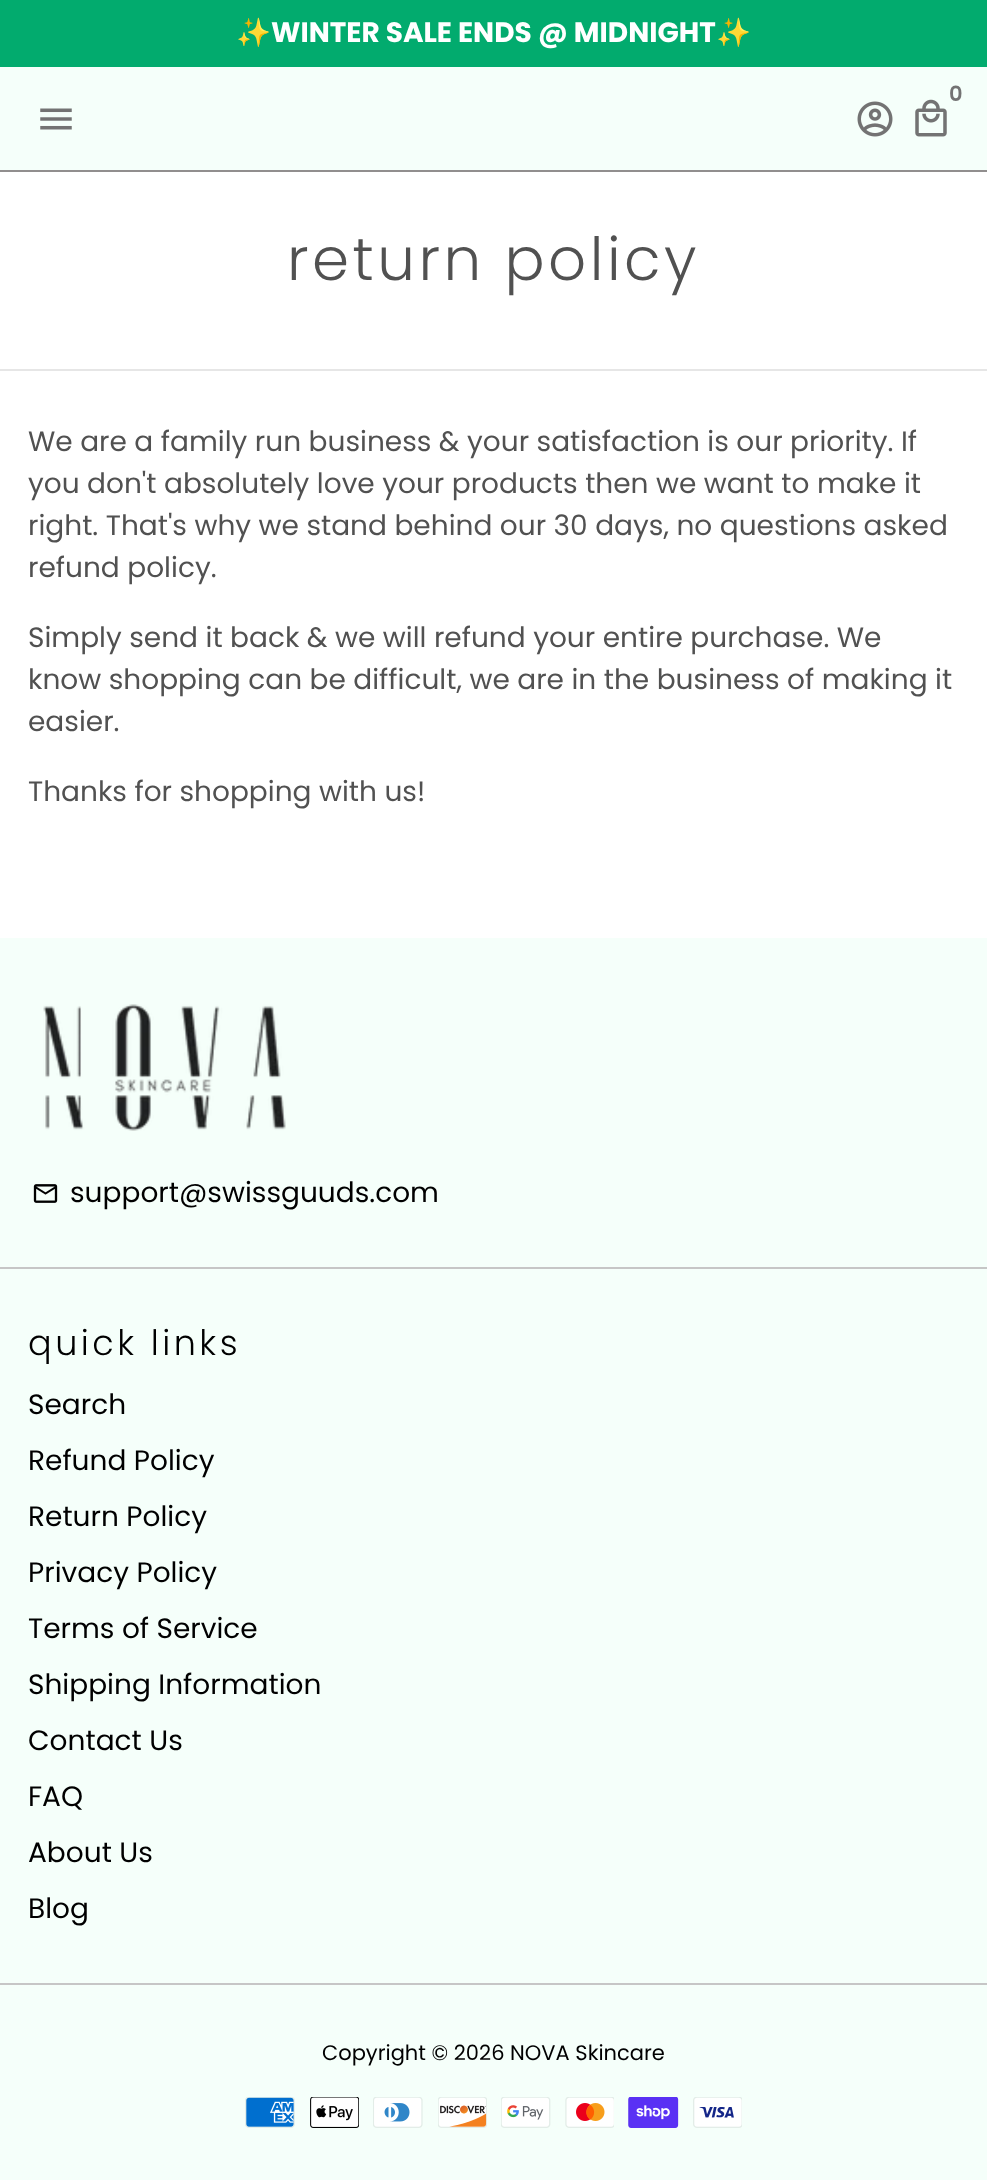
<?xml version="1.0" encoding="UTF-8"?>
<svg xmlns="http://www.w3.org/2000/svg" width="987" height="2180">
    <style>*{font-kerning:none!important;font-variant-ligatures:none!important}</style>
    <rect width="100%" height="100%" fill="#FFFFFF"/>
    <rect x="0" y="0" width="987" height="67" fill="#02AB6E"/>
    <text x="236" y="42" font-family="Noto Color Emoji" font-size="28" font-weight="700" fill="#FFFFFF">✨</text>
    <text x="271" y="42" font-family="Poppins" font-size="28" font-weight="700" fill="#FFFFFF">WINTER SALE ENDS @ MIDNIGHT</text>
    <text x="716" y="42" font-family="Noto Color Emoji" font-size="28" fill="#FFFFFF">✨</text>
    <rect x="0" y="67" width="987" height="103" fill="#F5FFFA"/>
    <rect x="0" y="170" width="987" height="2" fill="#918E8E"/>
    <text x="949" y="101" font-family="Poppins" font-size="21" font-weight="600" fill="#737373">0</text>
    <image x="915" y="99" width="32" height="38" href="img_01.png"/>
    <image x="857" y="101" width="36" height="36" href="img_02.png"/>
    <image x="40" y="108" width="32" height="22" href="img_03.png"/>
    <text x="287" y="280" font-family="Poppins" font-size="59.5" font-weight="300" letter-spacing="3.5" fill="#515151">return policy</text>
    <rect x="0" y="369" width="987" height="2" fill="#E6E6E6"/>
    <text font-family="Poppins" font-size="28" fill="#515151">
        <tspan x="28" y="451">We are a family run business &amp; your satisfaction is our priority. If</tspan>
        <tspan x="28" y="493">you don't absolutely love your products then we want to make it</tspan>
        <tspan x="28" y="535">right. That's why we stand behind our 30 days, no questions asked</tspan>
        <tspan x="28" y="577">refund policy.</tspan>
    </text>
    <text font-family="Poppins" font-size="28" fill="#515151">
        <tspan x="28" y="647">Simply send it back &amp; we will refund your entire purchase. We</tspan>
        <tspan x="28" y="689">know shopping can be difficult, we are in the business of making it</tspan>
        <tspan x="28" y="731">easier.</tspan>
    </text>
    <text x="28" y="801" font-family="Poppins" font-size="28" fill="#515151">Thanks for shopping with us!</text>
    <rect x="0" y="938" width="987" height="1242" fill="#F5FFFA"/>
    <image x="43" y="1004" width="243" height="127" href="img_04.png"/>
    <image x="33" y="1184" width="25" height="19" href="img_05.png"/>
    <text x="70" y="1202" font-family="Poppins" font-size="28" fill="#000000">support@swissguuds.com</text>
    <rect x="0" y="1267" width="987" height="2" fill="#C6C6C6"/>
    <text x="28" y="1355" font-family="Poppins" font-size="35" font-weight="300" letter-spacing="3.5" fill="#000000">quick links</text>
    <text x="28" y="1414" font-family="Poppins" font-size="28" fill="#000000">Search</text>
    <text x="28" y="1470" font-family="Poppins" font-size="28" fill="#000000">Refund Policy</text>
    <text x="28" y="1526" font-family="Poppins" font-size="28" fill="#000000">Return Policy</text>
    <text x="28" y="1582" font-family="Poppins" font-size="28" fill="#000000">Privacy Policy</text>
    <text x="28" y="1638" font-family="Poppins" font-size="28" fill="#000000">Terms of Service</text>
    <text x="28" y="1694" font-family="Poppins" font-size="28" fill="#000000">Shipping Information</text>
    <text x="28" y="1750" font-family="Poppins" font-size="28" fill="#000000">Contact Us</text>
    <text x="28" y="1806" font-family="Poppins" font-size="28" fill="#000000">FAQ</text>
    <text x="28" y="1862" font-family="Poppins" font-size="28" fill="#000000">About Us</text>
    <text x="28" y="1918" font-family="Poppins" font-size="28" fill="#000000">Blog</text>
    <rect x="0" y="1983" width="987" height="2" fill="#C6C6C6"/>
    <text x="322" y="2060" font-family="Poppins" font-size="21" fill="#000000">Copyright © 2026 NOVA Skincare</text>
    <image x="245" y="2097" width="50" height="31" href="img_06.png"/>
    <image x="310" y="2097" width="49" height="31" href="img_07.png"/>
    <image x="373" y="2097" width="50" height="31" href="img_08.png"/>
    <image x="438" y="2097" width="49" height="31" href="img_09.png"/>
    <image x="501" y="2097" width="50" height="31" href="img_10.png"/>
    <image x="565" y="2097" width="49" height="31" href="img_11.png"/>
    <image x="628" y="2097" width="51" height="31" href="img_12.png"/>
    <image x="693" y="2097" width="49" height="31" href="img_13.png"/>
</svg>
